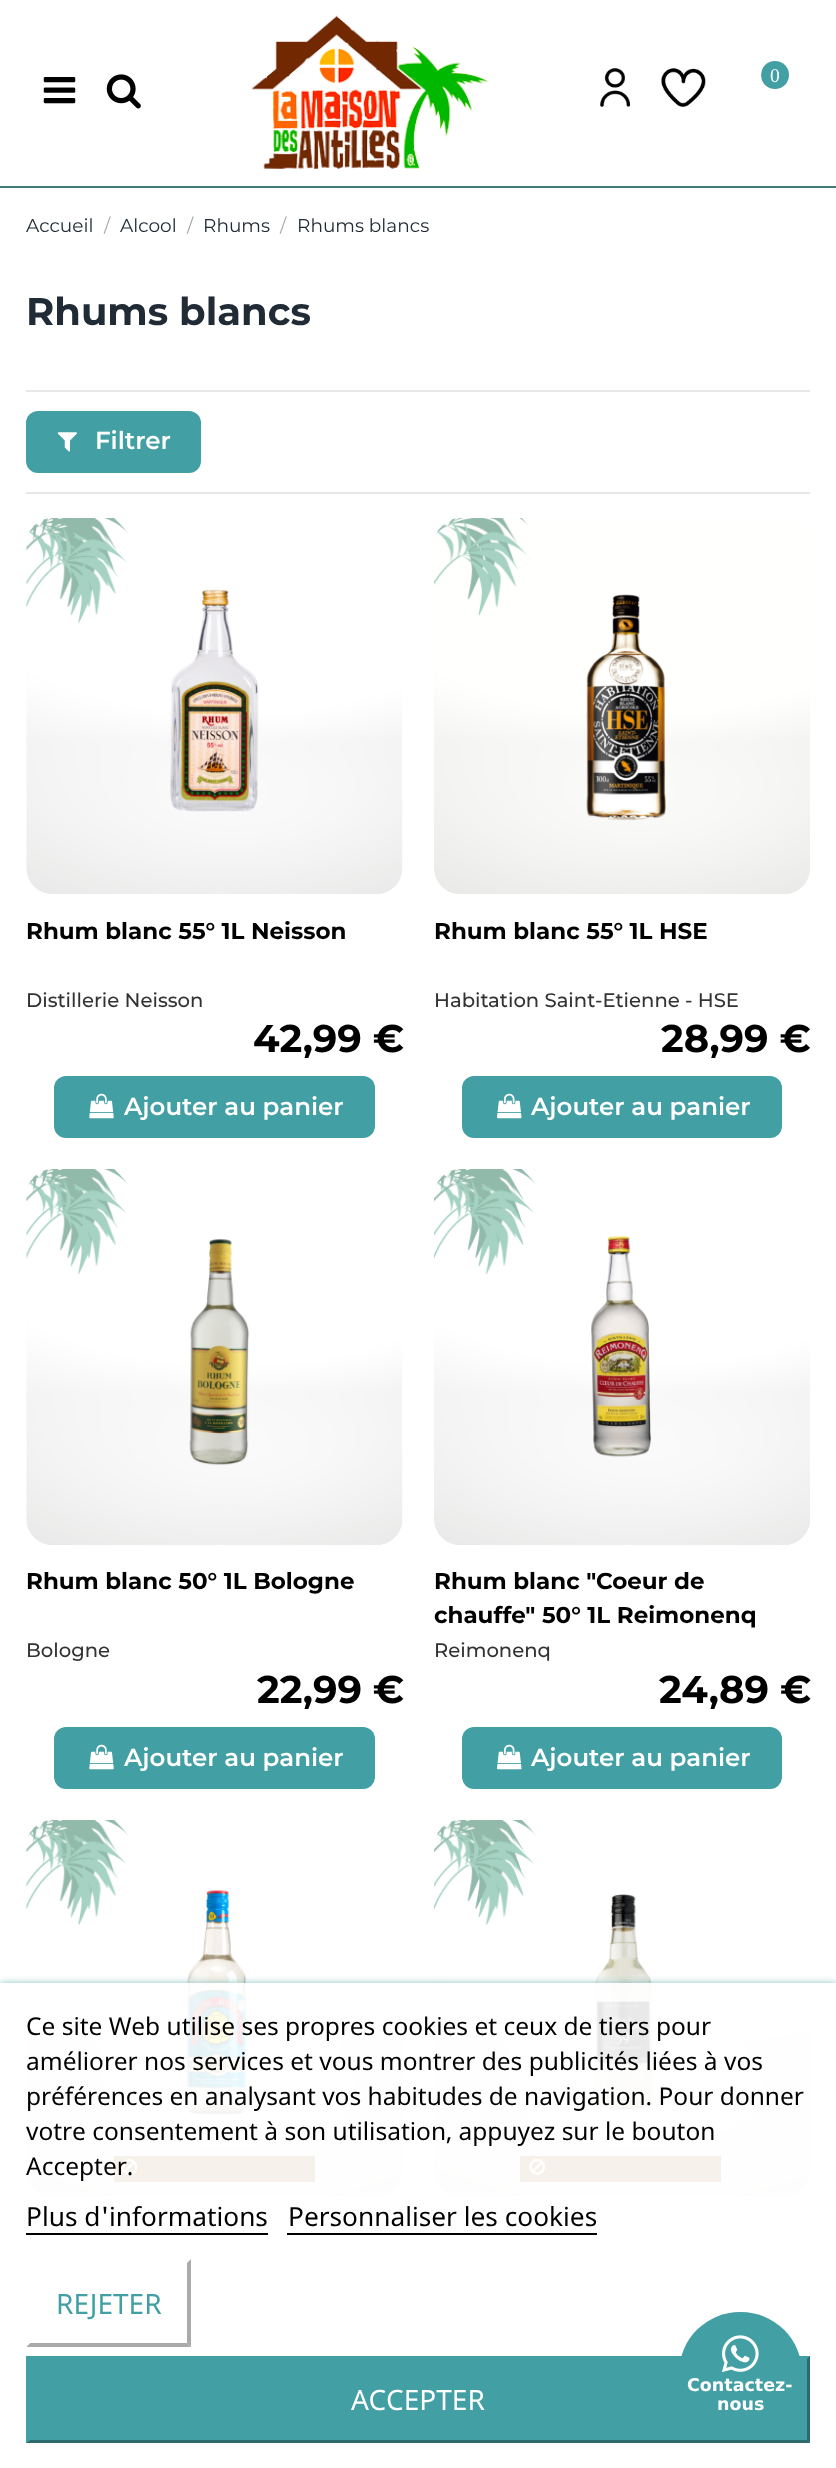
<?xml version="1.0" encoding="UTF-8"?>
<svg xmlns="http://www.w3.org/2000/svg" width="836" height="2468">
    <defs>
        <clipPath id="clip1"><rect x="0" y="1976" width="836" height="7"/></clipPath>
        <filter id="blur1" x="-50%" y="-200%" width="200%" height="500%"><feGaussianBlur stdDeviation="4.5"/></filter>
    </defs>
    <rect width="100%" height="100%" fill="#FFFFFF"/>
    <rect x="0" y="186" width="836" height="2" fill="#427B75"/>
    <image x="43" y="77" width="33" height="27" href="img_01.png"/>
    <image x="106" y="74" width="35" height="35" href="img_02.png"/>
    <image x="251" y="15" width="238" height="154" href="img_03.png"/>
    <image x="600" y="68" width="30" height="39" href="img_04.png"/>
    <image x="661" y="68" width="45" height="39" href="img_05.png"/>
    <circle cx="775" cy="75" r="14" fill="#429FA3"/>
    <text x="770" y="82" font-family="Liberation Serif" font-size="19.6" fill="#FFFFFF">0</text>
    <text x="26" y="232" font-family="Montserrat" font-size="18.5" fill="#212B36">Accueil</text>
    <text x="104" y="232" font-family="Montserrat" font-size="18.5" fill="#A6AAAF">/</text>
    <text x="120" y="232" font-family="Montserrat" font-size="18.5" fill="#212B36">Alcool</text>
    <text x="187" y="232" font-family="Montserrat" font-size="18.5" fill="#A6AAAF">/</text>
    <text x="203" y="232" font-family="Montserrat" font-size="18.5" fill="#212B36">Rhums</text>
    <text x="280" y="232" font-family="Montserrat" font-size="18.5" fill="#A6AAAF">/</text>
    <text x="297" y="232" font-family="Montserrat" font-size="18.5" fill="#212B36">Rhums blancs</text>
    <text x="26" y="325" font-family="Montserrat" font-size="38.5" font-weight="700" fill="#212B36">Rhums blancs</text>
    <rect x="26" y="390" width="784" height="2" fill="#E7E7E7"/>
    <rect x="26" y="492" width="784" height="2" fill="#E7E7E7"/>
    <rect x="26" y="411" width="175" height="62" rx="12" fill="#429FA3"/>
    <image x="57" y="432" width="20" height="20" href="img_06.png"/>
    <text x="95" y="449" font-family="Montserrat" font-size="24.5" font-weight="600" fill="#FFFFFF">Filtrer</text>
    <image x="26" y="518" width="377" height="376" href="img_07.png"/>
    <text x="26" y="939" font-family="Montserrat" font-size="23" font-weight="700" fill="#000000">Rhum blanc 55° 1L Neisson</text>
    <text x="26" y="1007" font-family="Montserrat" font-size="19.6" font-weight="500" fill="#333333">Distillerie Neisson</text>
    <text x="253" y="1052" font-family="Montserrat" font-size="38.5" font-weight="700" fill="#000000">42,99 €</text>
    <rect x="54" y="1076" width="321" height="62" rx="12" fill="#429FA3"/>
    <image x="89" y="1093" width="25" height="26" href="img_08.png"/>
    <text x="124" y="1115" font-family="Montserrat" font-size="24.5" font-weight="600" fill="#FFFFFF">Ajouter au panier</text>
    <image x="434" y="518" width="376" height="376" href="img_09.png"/>
    <text x="434" y="939" font-family="Montserrat" font-size="23" font-weight="700" fill="#000000">Rhum blanc 55° 1L HSE</text>
    <text x="434" y="1007" font-family="Montserrat" font-size="19.6" font-weight="500" fill="#333333">Habitation Saint-Etienne - HSE</text>
    <text x="661" y="1052" font-family="Montserrat" font-size="38.5" font-weight="700" fill="#000000">28,99 €</text>
    <rect x="462" y="1076" width="320" height="62" rx="12" fill="#429FA3"/>
    <image x="497" y="1093" width="25" height="26" href="img_10.png"/>
    <text x="531" y="1115" font-family="Montserrat" font-size="24.5" font-weight="600" fill="#FFFFFF">Ajouter au panier</text>
    <image x="26" y="1169" width="377" height="376" href="img_11.png"/>
    <text x="26" y="1589" font-family="Montserrat" font-size="23" font-weight="700" fill="#000000">Rhum blanc 50° 1L Bologne</text>
    <text x="26" y="1657" font-family="Montserrat" font-size="19.6" font-weight="500" fill="#333333">Bologne</text>
    <text x="257" y="1703" font-family="Montserrat" font-size="38.5" font-weight="700" fill="#000000">22,99 €</text>
    <rect x="54" y="1727" width="321" height="62" rx="12" fill="#429FA3"/>
    <image x="89" y="1744" width="25" height="26" href="img_08.png"/>
    <text x="124" y="1766" font-family="Montserrat" font-size="24.5" font-weight="600" fill="#FFFFFF">Ajouter au panier</text>
    <image x="434" y="1169" width="376" height="376" href="img_12.png"/>
    <text font-family="Montserrat" font-size="23" font-weight="700" fill="#000000">
        <tspan x="434" y="1589">Rhum blanc "Coeur de</tspan>
        <tspan x="434" y="1623">chauffe" 50° 1L Reimonenq</tspan>
    </text>
    <text x="434" y="1657" font-family="Montserrat" font-size="19.6" font-weight="500" fill="#333333">Reimonenq</text>
    <text x="659" y="1703" font-family="Montserrat" font-size="38.5" font-weight="700" fill="#000000">24,89 €</text>
    <rect x="462" y="1727" width="320" height="62" rx="12" fill="#429FA3"/>
    <image x="497" y="1744" width="25" height="26" href="img_10.png"/>
    <text x="531" y="1766" font-family="Montserrat" font-size="24.5" font-weight="600" fill="#FFFFFF">Ajouter au panier</text>
    <image x="26" y="1820" width="377" height="376" href="img_13.png"/>
    <rect x="114" y="2156" width="201" height="26" fill="#A17738"/>
    <image x="121" y="2159" width="17" height="16" href="img_14.png"/>
    <image x="434" y="1820" width="376" height="376" href="img_15.png"/>
    <rect x="520" y="2156" width="201" height="26" fill="#A17738"/>
    <image x="529" y="2159" width="16" height="16" href="img_16.png"/>
    <g clip-path="url(#clip1)">
        <rect x="0" y="1985" width="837" height="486" fill="#429FA3" filter="url(#blur1)"/>
    </g>
    <rect x="26" y="1983" width="784" height="213" fill="#FFFFFF" fill-opacity="0.9"/>
    <text font-family="Noto Sans" font-size="24.5" fill="#000000">
        <tspan x="26" y="2035">Ce site Web utilise ses propres cookies et ceux de tiers pour</tspan>
        <tspan x="26" y="2070">améliorer nos services et vous montrer des publicités liées à vos</tspan>
        <tspan x="26" y="2105">préférences en analysant vos habitudes de navigation. Pour donner</tspan>
        <tspan x="26" y="2140">votre consentement à son utilisation, appuyez sur le bouton</tspan>
        <tspan x="26" y="2175">Accepter.</tspan>
    </text>
    <text x="26" y="2226" font-family="Noto Sans" font-size="26.25" fill="#000000">Plus d'informations</text>
    <rect x="26" y="2233" width="242" height="2" fill="#000000"/>
    <text x="288" y="2226" font-family="Noto Sans" font-size="26.25" fill="#000000">Personnaliser les cookies</text>
    <rect x="287" y="2233" width="310" height="2" fill="#000000"/>
    <path d="M 191 2259 V 2347 L 187 2343 V 2263 Z" fill="#AAAAAA"/>
    <path d="M 191 2347 H 26 L 30 2343 H 187 Z" fill="#AAAAAA"/>
    <path d="M 26 2347 V 2259 L 30 2263 V 2343 Z" fill="#FFFFFF"/>
    <text x="56" y="2314" font-family="Noto Sans" font-size="28" fill="#429FA3">REJETER</text>
    <rect x="26" y="2356" width="784" height="87" fill="#429FA3"/>
    <path d="M 810 2356 V 2443 L 807 2440 V 2359 Z" fill="#2C6A6D"/>
    <path d="M 810 2443 H 26 L 30 2440 H 807 Z" fill="#2C6A6D"/>
    <path d="M 26 2443 V 2356 L 30 2359 V 2440 Z" fill="#429FA3"/>
    <text x="351" y="2410" font-family="Noto Sans" font-size="28" fill="#FFFFFF">ACCEPTER</text>
    <rect x="679" y="2312" width="123" height="122" rx="61" fill="#429FA3"/>
    <image x="722" y="2335" width="37" height="37" href="img_17.png"/>
    <text x="687" y="2391" font-family="DejaVu Sans" font-size="17.5" font-weight="700" fill="#FFFFFF">Contactez-</text>
    <text x="717" y="2410" font-family="DejaVu Sans" font-size="17.5" font-weight="700" fill="#FFFFFF">nous</text>
</svg>
